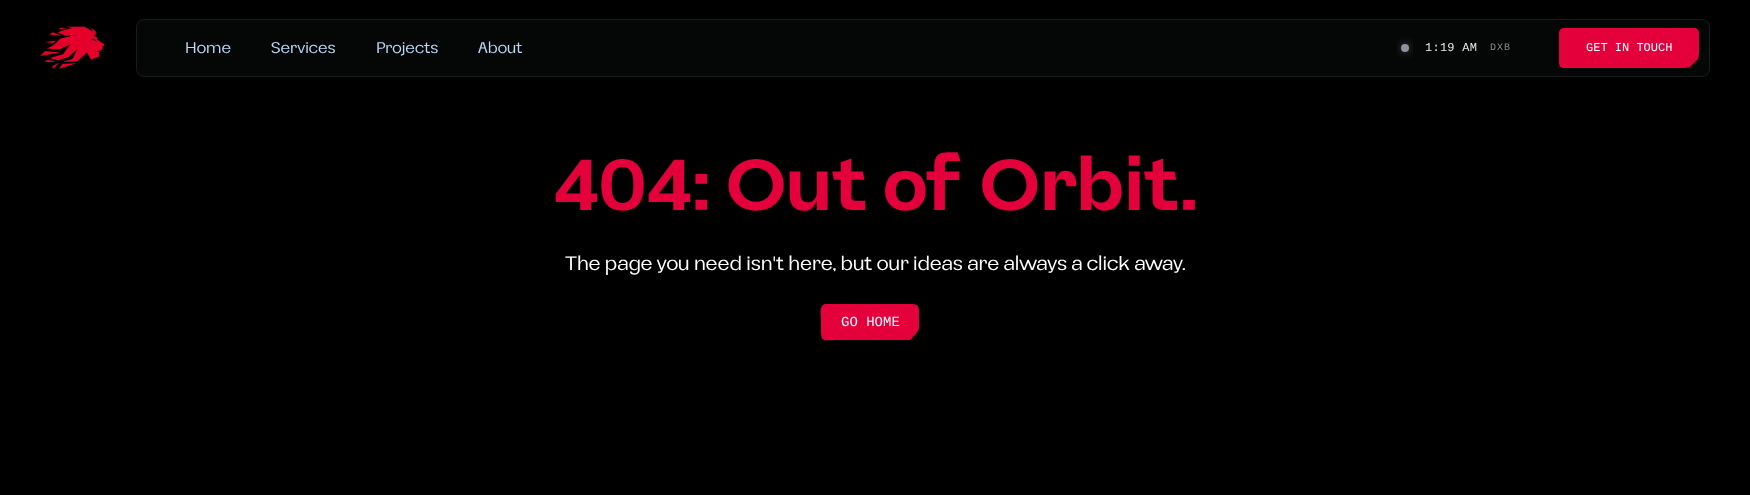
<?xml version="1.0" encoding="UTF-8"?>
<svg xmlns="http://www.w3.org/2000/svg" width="1750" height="495">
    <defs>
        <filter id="blur1" x="-50%" y="-200%" width="200%" height="500%"><feGaussianBlur stdDeviation="4"/></filter>
    </defs>
    <rect width="100%" height="100%" fill="#000000"/>
    <image x="40" y="26" width="64" height="44" href="img_01.png"/>
    <rect x="136" y="19" width="1574" height="58" rx="8" fill="#050606"/>
    <rect x="136.5" y="19.5" width="1573" height="57" rx="7.5" fill="none" stroke="#BAD7F5" stroke-opacity="0.1"/>
    <text x="185" y="53" font-family="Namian" font-size="16" fill="#BAD7F5">Home</text>
    <text x="271" y="53" font-family="Namian" font-size="16" fill="#BAD7F5">Services</text>
    <text x="376" y="53" font-family="Namian" font-size="16" fill="#BAD7F5">Projects</text>
    <text x="478" y="53" font-family="Namian" font-size="16" fill="#BAD7F5">About</text>
    <rect x="1401" y="44" width="8" height="8" rx="4" fill="#8D939E" fill-opacity="0.5" filter="url(#blur1)"/>
    <circle cx="1405" cy="48" r="4" fill="#8D939E"/>
    <text x="1425" y="51" font-family="Liberation Mono" font-size="12" letter-spacing="0.25" fill="#E6E6E6">1:19 AM</text>
    <text x="1490" y="50" font-family="Liberation Mono" font-size="10" letter-spacing="1" fill="#8C8C8C">DXB</text>
    <path d="M 1564 28 C 1561 28 1559 30 1559 33 V 63 C 1559 66 1561 68 1564 68 H 1685 L 1690 67 L 1698 59 L 1699 54 V 33 C 1699 30 1697 28 1694 28 Z" fill="#E4003B"/>
    <text x="1586" y="51" font-family="Liberation Mono" font-size="12" fill="#FFFFFF">GET IN TOUCH</text>
    <text x="553" y="210" font-family="Namian" font-size="72" font-weight="700" fill="#E4003B">404: Out of Orbit.</text>
    <text x="565" y="270" font-family="Namian" font-size="20" fill="#FFFFFF">The page you need isn't here, but our ideas are always a click away.</text>
    <path d="M 826 304 H 899 C 921 304 919 302 919 321 C 919 331 920 329 913 337 L 910 340 H 838 C 824 340 821 343 821 331 V 318 C 821 314 819 304 826 304 Z" fill="#E4003B"/>
    <text x="841" y="326" font-family="Liberation Mono" font-size="14" fill="#FFFFFF">GO HOME</text>
</svg>
